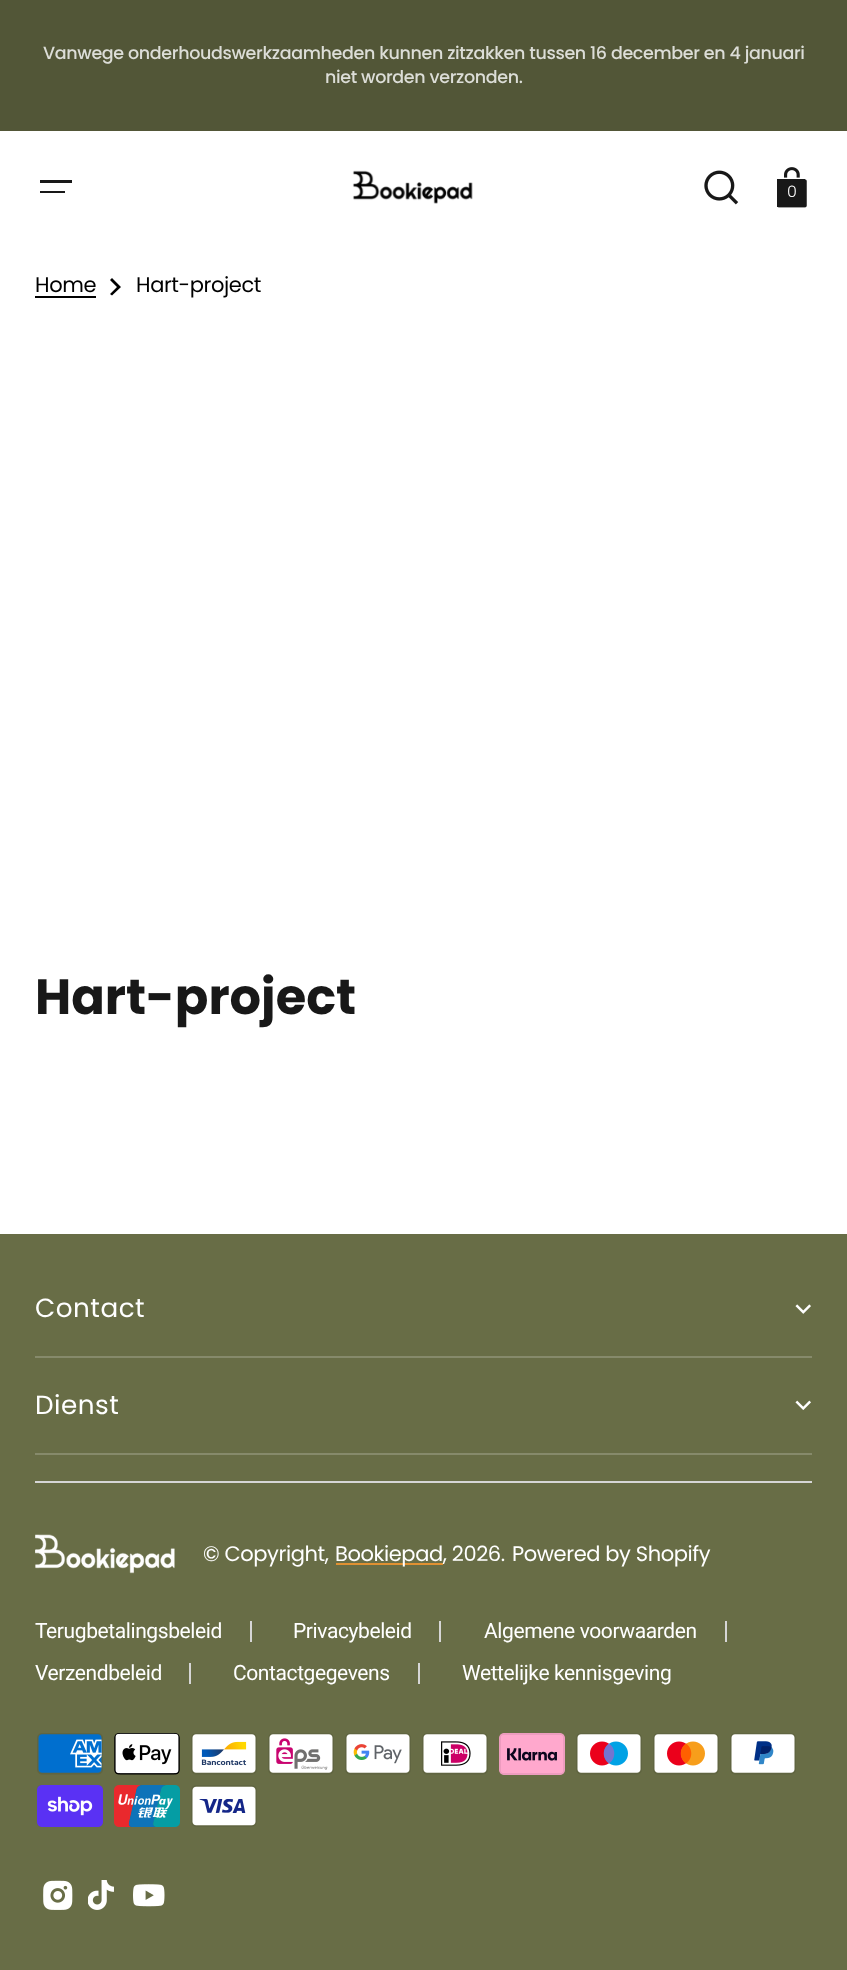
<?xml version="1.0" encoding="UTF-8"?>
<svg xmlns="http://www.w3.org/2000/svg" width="847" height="1970">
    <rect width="100%" height="100%" fill="#FFFFFF"/>
    <rect x="0" y="0" width="847" height="131" fill="#525637"/>
    <text x="43" y="59" font-family="Poppins" font-size="17.5" font-weight="500" letter-spacing="-0.35" fill="#DCDDD7">Vanwege onderhoudswerkzaamheden kunnen zitzakken tussen 16 december en 4 januari</text>
    <text x="325" y="83" font-family="Poppins" font-size="17.5" font-weight="500" letter-spacing="-0.35" fill="#DCDDD7">niet worden verzonden.</text>
    <rect x="40" y="180" width="32" height="3" fill="#181818"/>
    <rect x="40" y="191" width="25" height="2" fill="#181818"/>
    <image x="352" y="170" width="121" height="34" href="img_01.png"/>
    <image x="704" y="170" width="35" height="35" href="img_02.png"/>
    <image x="777" y="167" width="30" height="41" href="img_03.png"/>
    <rect x="777" y="179" width="28" height="28" fill="#181818"/>
    <text x="787" y="197" font-family="Poppins" font-size="16" font-weight="300" fill="#FFFFFF">0</text>
    <text x="35" y="292" font-family="Poppins" font-size="21" letter-spacing="-0.4" fill="#000000">Home</text>
    <rect x="35" y="296" width="61" height="2" fill="#000000"/>
    <path d="M 117 287 L 110 280 L 112 278 L 121 287 L 112 295.5 L 110 294 Z" fill="#000000"/>
    <text x="136" y="292" font-family="Poppins" font-size="21" letter-spacing="-0.4" fill="#000000">Hart-project</text>
    <text x="35" y="1014" font-family="Poppins" font-size="49.5" font-weight="700" fill="#181818">Hart-project</text>
    <rect x="0" y="1234" width="847" height="736" fill="#686D46"/>
    <rect x="35" y="1356" width="777" height="2" fill="#868A6B"/>
    <text x="35" y="1317" font-family="Poppins" font-size="26.25" letter-spacing="0.5" fill="#FFFFFF">Contact</text>
    <image x="795" y="1304" width="16" height="10" href="img_04.png"/>
    <rect x="35" y="1453" width="777" height="2" fill="#868A6B"/>
    <text x="35" y="1414" font-family="Poppins" font-size="26.25" letter-spacing="0.5" fill="#FFFFFF">Dienst</text>
    <image x="795" y="1400" width="16" height="10" href="img_05.png"/>
    <rect x="35" y="1481" width="777" height="2" fill="#D6D6D6"/>
    <image x="35" y="1534" width="140" height="40" href="img_06.png"/>
    <text x="203" y="1561" font-family="Poppins" font-size="21" letter-spacing="-0.4" fill="#FFFFFF">© Copyright,</text>
    <rect x="336" y="1563" width="107" height="2" fill="#E09132"/>
    <text x="335" y="1561" font-family="Poppins" font-size="21" letter-spacing="-0.4" fill="#FFFFFF">Bookiepad, 2026.</text>
    <text x="512" y="1561" font-family="Poppins" font-size="21" letter-spacing="-0.4" fill="#FFFFFF">Powered by Shopify</text>
    <text x="35" y="1638" font-family="Roboto" font-size="21" letter-spacing="-0.4" fill="#FFFFFF">Terugbetalingsbeleid</text>
    <rect x="250" y="1621" width="2" height="21" fill="#D6D6D6"/>
    <text x="293" y="1638" font-family="Roboto" font-size="21" letter-spacing="-0.4" fill="#FFFFFF">Privacybeleid</text>
    <rect x="439" y="1621" width="2" height="21" fill="#D6D6D6"/>
    <text x="484" y="1638" font-family="Roboto" font-size="21" letter-spacing="-0.4" fill="#FFFFFF">Algemene voorwaarden</text>
    <rect x="725" y="1621" width="2" height="21" fill="#D6D6D6"/>
    <text x="35" y="1680" font-family="Roboto" font-size="21" letter-spacing="-0.4" fill="#FFFFFF">Verzendbeleid</text>
    <rect x="189" y="1663" width="2" height="21" fill="#D6D6D6"/>
    <text x="233" y="1680" font-family="Roboto" font-size="21" letter-spacing="-0.4" fill="#FFFFFF">Contactgegevens</text>
    <rect x="418" y="1663" width="2" height="21" fill="#D6D6D6"/>
    <text x="462" y="1680" font-family="Roboto" font-size="21" letter-spacing="-0.4" fill="#FFFFFF">Wettelijke kennisgeving</text>
    <image x="37" y="1733" width="66" height="42" href="img_07.png"/>
    <image x="114" y="1733" width="66" height="42" href="img_08.png"/>
    <image x="191" y="1733" width="66" height="42" href="img_09.png"/>
    <image x="268" y="1733" width="66" height="42" href="img_10.png"/>
    <image x="345" y="1733" width="66" height="42" href="img_11.png"/>
    <image x="422" y="1733" width="66" height="42" href="img_12.png"/>
    <image x="499" y="1733" width="66" height="42" href="img_13.png"/>
    <image x="576" y="1733" width="66" height="42" href="img_14.png"/>
    <image x="653" y="1733" width="66" height="42" href="img_15.png"/>
    <image x="730" y="1733" width="66" height="42" href="img_16.png"/>
    <image x="37" y="1785" width="66" height="42" href="img_17.png"/>
    <image x="114" y="1785" width="66" height="42" href="img_18.png"/>
    <image x="191" y="1785" width="66" height="42" href="img_19.png"/>
    <image x="43" y="1880" width="30" height="30" href="img_20.png"/>
    <image x="88" y="1880" width="26" height="30" href="img_21.png"/>
    <image x="133" y="1884" width="32" height="23" href="img_22.png"/>
</svg>
